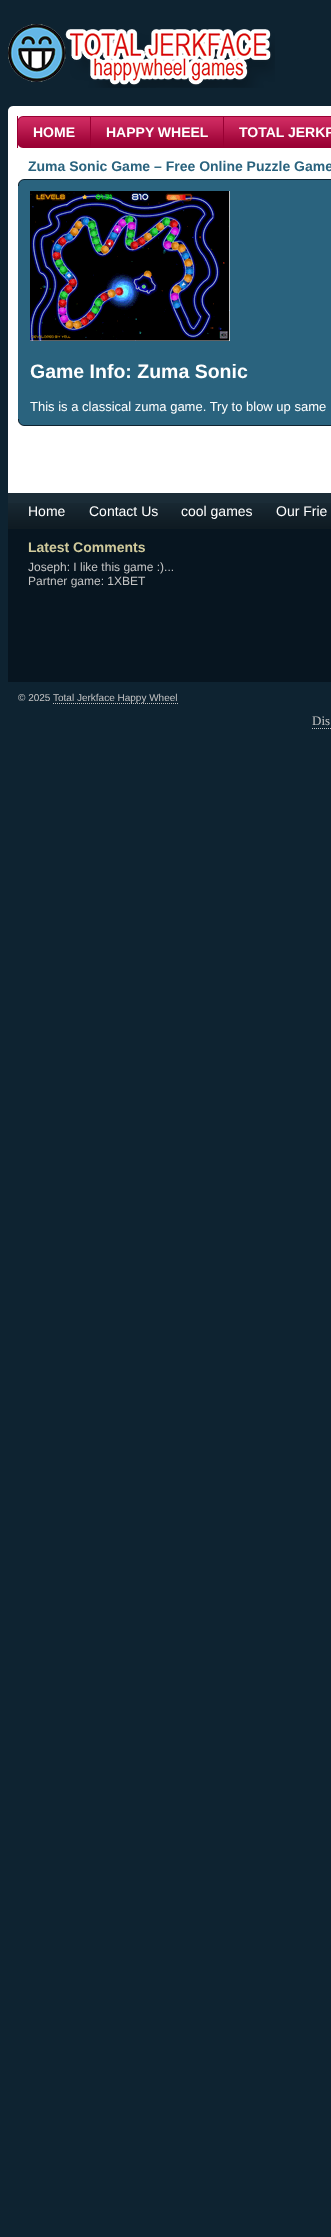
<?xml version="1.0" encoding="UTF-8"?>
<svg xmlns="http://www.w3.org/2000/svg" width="331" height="2237">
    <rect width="100%" height="100%" fill="#0E2331"/>
    <image x="8" y="24" width="267" height="64" href="img_01.png"/>
    <rect x="8" y="106" width="323" height="387" fill="#FFFFFF"/>
    <image x="8" y="106" width="5" height="5" href="img_02.png"/>
    <image x="18" y="116" width="313" height="32" href="img_03.png"/>
    <rect x="17" y="116" width="1" height="32" fill="#990033"/>
    <text x="33" y="137" font-family="Liberation Sans" font-size="14" font-weight="700" fill="#FFFFFF">HOME</text>
    <rect x="90" y="116" width="1" height="32" fill="#990033"/>
    <text x="106" y="137" font-family="Liberation Sans" font-size="14" font-weight="700" fill="#FFFFFF">HAPPY WHEEL</text>
    <rect x="223" y="116" width="1" height="32" fill="#990033"/>
    <text x="239" y="137" font-family="Liberation Sans" font-size="14" font-weight="700" fill="#FFFFFF">TOTAL JERKF</text>
    <image x="18" y="179" width="313" height="7" href="img_04.png"/>
    <text x="28" y="171" font-family="Liberation Sans" font-size="14" font-weight="700" fill="#2A637E">Zuma Sonic Game – Free Online Puzzle Game</text>
    <rect x="18" y="186" width="313" height="233" fill="#2A637E"/>
    <image x="30" y="191" width="200" height="150" href="img_05.png"/>
    <text x="30" y="378" font-family="Liberation Sans" font-size="19.5" font-weight="700" fill="#FFFFFF">Game Info: Zuma Sonic</text>
    <text x="30" y="411" font-family="Liberation Sans" font-size="13" fill="#FFFFFF">This is a classical zuma game. Try to blow up same</text>
    <image x="18" y="419" width="313" height="7" href="img_06.png"/>
    <rect x="8" y="493" width="323" height="10" fill="#1B2C37"/>
    <image x="8" y="503" width="323" height="26" href="img_07.png"/>
    <text x="28" y="516" font-family="Liberation Sans" font-size="14" fill="#FFFFFF">Home</text>
    <text x="89" y="516" font-family="Liberation Sans" font-size="14" fill="#FFFFFF">Contact Us</text>
    <text x="181" y="516" font-family="Liberation Sans" font-size="14" fill="#FFFFFF">cool games</text>
    <text x="276" y="516" font-family="Liberation Sans" font-size="14" fill="#FFFFFF">Our Frie</text>
    <rect x="8" y="529" width="323" height="153" fill="#071520"/>
    <text x="28" y="552" font-family="Liberation Sans" font-size="14" font-weight="700" fill="#D0CA9C">Latest Comments</text>
    <text font-family="Liberation Sans" font-size="12" fill="#C4C4C4">
        <tspan x="28" y="571">Joseph: I like this game :)...</tspan>
        <tspan x="28" y="585">Partner game: 1XBET</tspan>
    </text>
    <text x="18" y="701" font-family="Liberation Sans" font-size="10" fill="#C4C4C4">© 2025</text>
    <path d="M 53 703.5 H 178" fill="none" stroke="#C4C4C4" stroke-dasharray="1 1"/>
    <text x="53" y="701" font-family="Liberation Sans" font-size="10" fill="#C4C4C4">Total Jerkface Happy Wheel</text>
    <text x="312" y="725" font-family="Liberation Serif" font-size="13" fill="#C4C4C4">Dis</text>
    <path d="M 312 728.5 H 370" fill="none" stroke="#C4C4C4" stroke-dasharray="1 1"/>
</svg>
